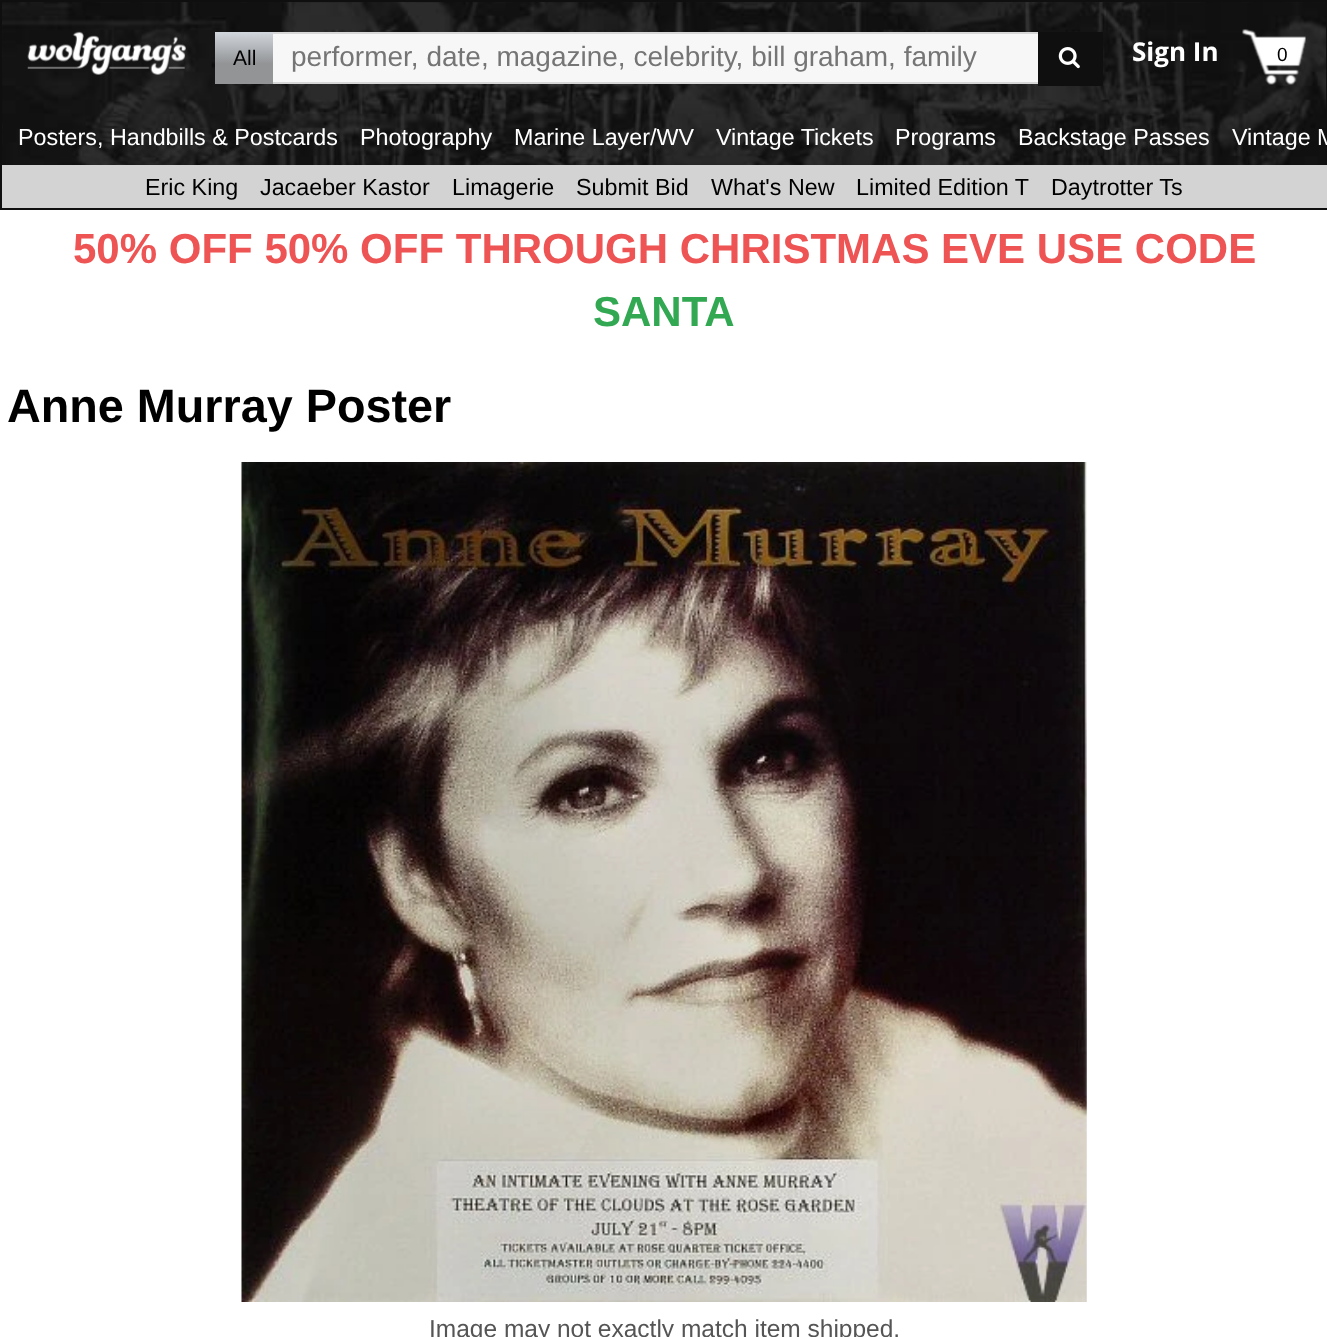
<?xml version="1.0" encoding="UTF-8"?>
<svg xmlns="http://www.w3.org/2000/svg" width="1327" height="1337">
    <defs>
        <linearGradient id="g1" gradientUnits="userSpaceOnUse" x1="244" y1="32" x2="244" y2="84"><stop offset="0" stop-color="#D2D7DD"/><stop offset="0.61" stop-color="#929496"/></linearGradient>
    </defs>
    <rect width="100%" height="100%" fill="#FFFFFF"/>
    <image x="2" y="2" width="1324" height="163" href="img_01.png"/>
    <rect x="1" y="1" width="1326" height="208" fill="none" stroke="#0F0F0F" stroke-width="2"/>
    <image x="27" y="31" width="159" height="44" href="img_02.png"/>
    <rect x="215" y="32" width="58" height="52" fill="url(#g1)"/>
    <text x="233" y="65" font-family="Liberation Sans" font-size="21" fill="#000000">All</text>
    <rect x="273" y="34" width="765" height="48" fill="#F7F7F7"/>
    <rect x="273" y="32" width="765" height="2" fill="#D7D7D7"/>
    <rect x="273" y="82" width="765" height="2" fill="#D7D7D7"/>
    <text x="291" y="66" font-family="Liberation Sans" font-size="28" fill="#757575">performer, date, magazine, celebrity, bill graham, family</text>
    <rect x="1038" y="32" width="65" height="54" fill="#0F0F0F"/>
    <image x="1058" y="47" width="22" height="22" href="img_03.png"/>
    <image x="1242" y="29" width="64" height="56" href="img_04.png"/>
    <text x="1132" y="61" font-family="Open Sans" font-size="26" font-weight="700" fill="#FFFFFF">Sign In</text>
    <text x="1277" y="61" font-family="Liberation Sans" font-size="19" fill="#000000">0</text>
    <text x="18" y="145" font-family="Liberation Sans" font-size="23.3" fill="#FFFFFF">Posters, Handbills &amp; Postcards</text>
    <text x="360" y="145" font-family="Liberation Sans" font-size="23.3" fill="#FFFFFF">Photography</text>
    <text x="514" y="145" font-family="Liberation Sans" font-size="23.3" fill="#FFFFFF">Marine Layer/WV</text>
    <text x="716" y="145" font-family="Liberation Sans" font-size="23.3" fill="#FFFFFF">Vintage Tickets</text>
    <text x="895" y="145" font-family="Liberation Sans" font-size="23.3" fill="#FFFFFF">Programs</text>
    <text x="1018" y="145" font-family="Liberation Sans" font-size="23.3" fill="#FFFFFF">Backstage Passes</text>
    <text x="1232" y="145" font-family="Liberation Sans" font-size="23.3" fill="#FFFFFF">Vintage M</text>
    <rect x="2" y="165" width="1325" height="43" fill="#D3D3D3"/>
    <text x="145" y="195" font-family="Liberation Sans" font-size="23.3" fill="#000000">Eric King</text>
    <text x="260" y="195" font-family="Liberation Sans" font-size="23.3" fill="#000000">Jacaeber Kastor</text>
    <text x="452" y="195" font-family="Liberation Sans" font-size="23.3" fill="#000000">Limagerie</text>
    <text x="576" y="195" font-family="Liberation Sans" font-size="23.3" fill="#000000">Submit Bid</text>
    <text x="711" y="195" font-family="Liberation Sans" font-size="23.3" fill="#000000">What's New</text>
    <text x="856" y="195" font-family="Liberation Sans" font-size="23.3" fill="#000000">Limited Edition T</text>
    <text x="1051" y="195" font-family="Liberation Sans" font-size="23.3" fill="#000000">Daytrotter Ts</text>
    <text x="73" y="263" font-family="Liberation Sans" font-size="42" font-weight="700" fill="#EE5454">50% OFF 50% OFF THROUGH CHRISTMAS EVE USE CODE</text>
    <text x="593" y="326" font-family="Liberation Sans" font-size="42" font-weight="700" fill="#32A852">SANTA</text>
    <text x="7" y="422" font-family="Liberation Sans" font-size="46.75" font-weight="700" fill="#000000">Anne Murray Poster</text>
    <image x="241" y="462" width="846" height="840" href="img_05.png"/>
    <text x="429" y="1337" font-family="Liberation Sans" font-size="24.5" fill="#555555">Image may not exactly match item shipped.</text>
</svg>
